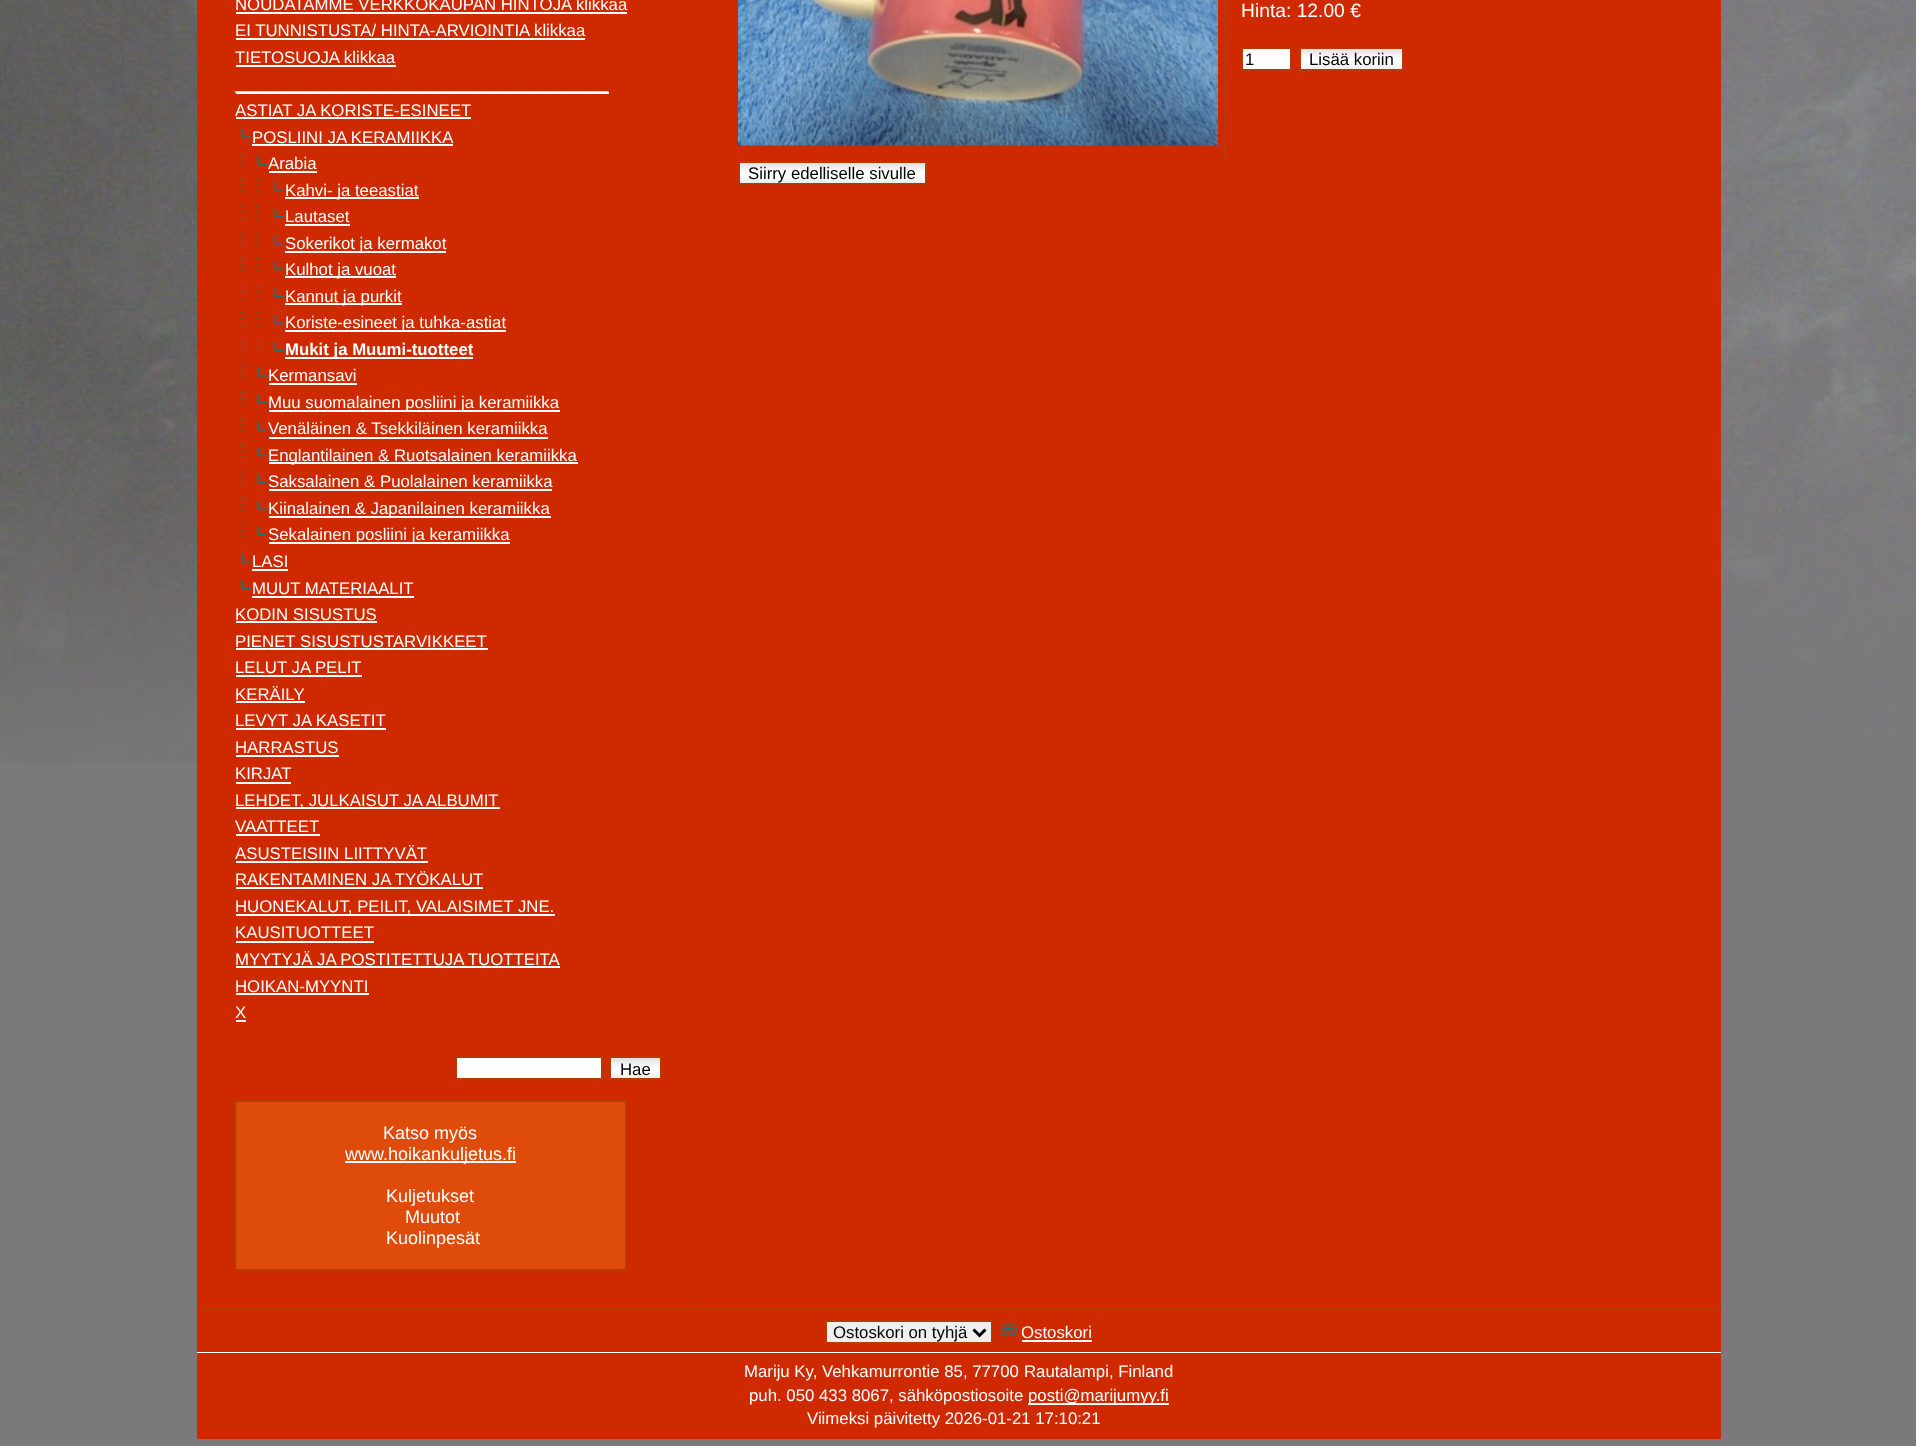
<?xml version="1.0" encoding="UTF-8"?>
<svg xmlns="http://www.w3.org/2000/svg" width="1916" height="1446">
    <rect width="100%" height="100%" fill="#7B797A"/>
    <image x="0" y="0" width="1916" height="763" href="img_01.png"/>
    <rect x="197" y="0" width="1524" height="1308" fill="#CF2900"/>
    <path d="M 700 -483 V 1308" fill="none" stroke="#B93900" stroke-width="1.5" stroke-dasharray="4.5 3"/>
    <text x="235" y="10" font-family="Liberation Sans" font-size="16.8" fill="#FFFFFF">NOUDATAMME VERKKOKAUPAN HINTOJA klikkaa</text>
    <rect x="236" y="12" width="391" height="2" fill="#FFFFFF"/>
    <text x="235" y="36" font-family="Liberation Sans" font-size="16.8" fill="#FFFFFF">EI TUNNISTUSTA/ HINTA-ARVIOINTIA klikkaa</text>
    <rect x="236" y="38" width="349" height="2" fill="#FFFFFF"/>
    <text x="235" y="63" font-family="Liberation Sans" font-size="16.8" fill="#FFFFFF">TIETOSUOJA klikkaa</text>
    <rect x="236" y="65" width="160" height="2" fill="#FFFFFF"/>
    <rect x="236" y="92" width="373" height="2" fill="#FFFFFF"/>
    <text font-family="Liberation Sans" font-size="16.8" fill="#FFFFFF">
        <tspan x="235" y="89">________________________________________</tspan>
        <tspan x="235" y="116">ASTIAT JA KORISTE-ESINEET</tspan>
    </text>
    <rect x="236" y="117" width="235" height="2" fill="#FFFFFF"/>
    <image x="241" y="128" width="10" height="11" href="img_02.png"/>
    <text x="252" y="143" font-family="Liberation Sans" font-size="16.8" fill="#FFFFFF">POSLIINI JA KERAMIIKKA</text>
    <rect x="252" y="144" width="201" height="2" fill="#FFFFFF"/>
    <image x="241" y="153" width="3" height="14" href="img_03.png"/>
    <image x="257" y="155" width="11" height="11" href="img_04.png"/>
    <text x="268" y="169" font-family="Liberation Sans" font-size="16.8" fill="#FFFFFF">Arabia</text>
    <rect x="269" y="171" width="48" height="2" fill="#FFFFFF"/>
    <image x="241" y="178" width="3" height="15" href="img_05.png"/>
    <image x="257" y="178" width="3" height="15" href="img_06.png"/>
    <image x="274" y="181" width="10" height="10" href="img_07.png"/>
    <rect x="285" y="197" width="134" height="2" fill="#FFFFFF"/>
    <text x="285" y="196" font-family="Liberation Sans" font-size="16.8" fill="#FFFFFF">Kahvi- ja teeastiat</text>
    <image x="241" y="205" width="3" height="15" href="img_05.png"/>
    <image x="257" y="205" width="3" height="15" href="img_06.png"/>
    <image x="274" y="208" width="10" height="10" href="img_07.png"/>
    <text x="285" y="222" font-family="Liberation Sans" font-size="16.8" fill="#FFFFFF">Lautaset</text>
    <rect x="285" y="224" width="65" height="2" fill="#FFFFFF"/>
    <image x="241" y="232" width="3" height="15" href="img_05.png"/>
    <image x="257" y="232" width="3" height="15" href="img_06.png"/>
    <image x="274" y="235" width="10" height="10" href="img_07.png"/>
    <rect x="285" y="251" width="161" height="2" fill="#FFFFFF"/>
    <text x="285" y="249" font-family="Liberation Sans" font-size="16.8" fill="#FFFFFF">Sokerikot ja kermakot</text>
    <image x="241" y="258" width="3" height="14" href="img_03.png"/>
    <image x="257" y="258" width="3" height="14" href="img_08.png"/>
    <image x="274" y="260" width="10" height="11" href="img_02.png"/>
    <rect x="285" y="276" width="111" height="2" fill="#FFFFFF"/>
    <text x="285" y="275" font-family="Liberation Sans" font-size="16.8" fill="#FFFFFF">Kulhot ja vuoat</text>
    <image x="241" y="285" width="3" height="14" href="img_03.png"/>
    <image x="257" y="285" width="3" height="14" href="img_08.png"/>
    <image x="274" y="287" width="10" height="11" href="img_02.png"/>
    <rect x="285" y="303" width="117" height="2" fill="#FFFFFF"/>
    <text x="285" y="302" font-family="Liberation Sans" font-size="16.8" fill="#FFFFFF">Kannut ja purkit</text>
    <image x="241" y="312" width="3" height="14" href="img_03.png"/>
    <image x="257" y="312" width="3" height="14" href="img_08.png"/>
    <image x="274" y="314" width="10" height="11" href="img_02.png"/>
    <rect x="285" y="330" width="221" height="2" fill="#FFFFFF"/>
    <text x="285" y="328" font-family="Liberation Sans" font-size="16.8" fill="#FFFFFF">Koriste-esineet ja tuhka-astiat</text>
    <image x="241" y="339" width="3" height="14" href="img_03.png"/>
    <image x="257" y="339" width="3" height="14" href="img_08.png"/>
    <image x="274" y="341" width="10" height="11" href="img_02.png"/>
    <rect x="285" y="357" width="188" height="2" fill="#FFFFFF"/>
    <text x="285" y="355" font-family="Liberation Sans" font-size="16.8" font-weight="700" fill="#FFFFFF">Mukit ja Muumi-tuotteet</text>
    <image x="241" y="364" width="3" height="15" href="img_05.png"/>
    <image x="257" y="367" width="11" height="10" href="img_09.png"/>
    <text x="268" y="381" font-family="Liberation Sans" font-size="16.8" fill="#FFFFFF">Kermansavi</text>
    <rect x="269" y="383" width="88" height="2" fill="#FFFFFF"/>
    <image x="241" y="391" width="3" height="15" href="img_05.png"/>
    <image x="257" y="394" width="11" height="10" href="img_09.png"/>
    <rect x="269" y="410" width="291" height="2" fill="#FFFFFF"/>
    <text x="268" y="408" font-family="Liberation Sans" font-size="16.8" fill="#FFFFFF">Muu suomalainen posliini ja keramiikka</text>
    <image x="241" y="418" width="3" height="15" href="img_05.png"/>
    <image x="257" y="421" width="11" height="10" href="img_09.png"/>
    <text x="268" y="434" font-family="Liberation Sans" font-size="16.8" fill="#FFFFFF">Venäläinen &amp; Tsekkiläinen keramiikka</text>
    <rect x="269" y="437" width="279" height="2" fill="#FFFFFF"/>
    <image x="241" y="444" width="3" height="14" href="img_03.png"/>
    <image x="257" y="446" width="11" height="11" href="img_04.png"/>
    <rect x="269" y="462" width="309" height="2" fill="#FFFFFF"/>
    <text x="268" y="461" font-family="Liberation Sans" font-size="16.8" fill="#FFFFFF">Englantilainen &amp; Ruotsalainen keramiikka</text>
    <image x="241" y="471" width="3" height="14" href="img_03.png"/>
    <image x="257" y="473" width="11" height="11" href="img_04.png"/>
    <text x="268" y="487" font-family="Liberation Sans" font-size="16.8" fill="#FFFFFF">Saksalainen &amp; Puolalainen keramiikka</text>
    <rect x="269" y="489" width="283" height="2" fill="#FFFFFF"/>
    <image x="241" y="498" width="3" height="14" href="img_03.png"/>
    <image x="257" y="500" width="11" height="11" href="img_04.png"/>
    <rect x="269" y="516" width="282" height="2" fill="#FFFFFF"/>
    <text x="268" y="514" font-family="Liberation Sans" font-size="16.8" fill="#FFFFFF">Kiinalainen &amp; Japanilainen keramiikka</text>
    <image x="241" y="523" width="3" height="15" href="img_05.png"/>
    <image x="257" y="526" width="11" height="10" href="img_09.png"/>
    <rect x="269" y="542" width="241" height="2" fill="#FFFFFF"/>
    <text x="268" y="540" font-family="Liberation Sans" font-size="16.8" fill="#FFFFFF">Sekalainen posliini ja keramiikka</text>
    <image x="241" y="553" width="10" height="10" href="img_07.png"/>
    <text x="252" y="567" font-family="Liberation Sans" font-size="16.8" fill="#FFFFFF">LASI</text>
    <rect x="252" y="569" width="36" height="2" fill="#FFFFFF"/>
    <image x="241" y="580" width="10" height="10" href="img_07.png"/>
    <text x="252" y="594" font-family="Liberation Sans" font-size="16.8" fill="#FFFFFF">MUUT MATERIAALIT</text>
    <rect x="252" y="596" width="162" height="2" fill="#FFFFFF"/>
    <text x="235" y="620" font-family="Liberation Sans" font-size="16.8" fill="#FFFFFF">KODIN SISUSTUS</text>
    <rect x="236" y="621" width="141" height="2" fill="#FFFFFF"/>
    <text x="235" y="647" font-family="Liberation Sans" font-size="16.8" fill="#FFFFFF">PIENET SISUSTUSTARVIKKEET</text>
    <rect x="236" y="648" width="252" height="2" fill="#FFFFFF"/>
    <text x="235" y="673" font-family="Liberation Sans" font-size="16.8" fill="#FFFFFF">LELUT JA PELIT</text>
    <rect x="236" y="675" width="126" height="2" fill="#FFFFFF"/>
    <text x="235" y="700" font-family="Liberation Sans" font-size="16.8" fill="#FFFFFF">KERÄILY</text>
    <rect x="236" y="701" width="69" height="2" fill="#FFFFFF"/>
    <text x="235" y="726" font-family="Liberation Sans" font-size="16.8" fill="#FFFFFF">LEVYT JA KASETIT</text>
    <rect x="236" y="728" width="150" height="2" fill="#FFFFFF"/>
    <text x="235" y="753" font-family="Liberation Sans" font-size="16.8" fill="#FFFFFF">HARRASTUS</text>
    <rect x="236" y="755" width="103" height="2" fill="#FFFFFF"/>
    <text x="235" y="779" font-family="Liberation Sans" font-size="16.8" fill="#FFFFFF">KIRJAT</text>
    <rect x="236" y="782" width="55" height="2" fill="#FFFFFF"/>
    <rect x="236" y="807" width="264" height="2" fill="#FFFFFF"/>
    <text font-family="Liberation Sans" font-size="16.8" fill="#FFFFFF">
        <tspan x="235" y="806">LEHDET, JULKAISUT JA ALBUMIT</tspan>
        <tspan x="235" y="832">VAATTEET</tspan>
    </text>
    <rect x="236" y="834" width="84" height="2" fill="#FFFFFF"/>
    <text x="235" y="859" font-family="Liberation Sans" font-size="16.8" fill="#FFFFFF">ASUSTEISIIN LIITTYVÄT</text>
    <rect x="236" y="861" width="192" height="2" fill="#FFFFFF"/>
    <text x="235" y="885" font-family="Liberation Sans" font-size="16.8" fill="#FFFFFF">RAKENTAMINEN JA TYÖKALUT</text>
    <rect x="236" y="887" width="247" height="2" fill="#FFFFFF"/>
    <rect x="236" y="914" width="319" height="2" fill="#FFFFFF"/>
    <text font-family="Liberation Sans" font-size="16.8" fill="#FFFFFF">
        <tspan x="235" y="912">HUONEKALUT, PEILIT, VALAISIMET JNE.</tspan>
        <tspan x="235" y="938">KAUSITUOTTEET</tspan>
    </text>
    <rect x="236" y="941" width="138" height="2" fill="#FFFFFF"/>
    <text x="235" y="965" font-family="Liberation Sans" font-size="16.8" fill="#FFFFFF">MYYTYJÄ JA POSTITETTUJA TUOTTEITA</text>
    <rect x="236" y="966" width="324" height="2" fill="#FFFFFF"/>
    <text x="235" y="992" font-family="Liberation Sans" font-size="16.8" fill="#FFFFFF">HOIKAN-MYYNTI</text>
    <rect x="236" y="993" width="133" height="2" fill="#FFFFFF"/>
    <text x="235" y="1018" font-family="Liberation Sans" font-size="16.8" fill="#FFFFFF">X</text>
    <rect x="236" y="1020" width="10" height="2" fill="#FFFFFF"/>
    <rect x="456" y="1057" width="146" height="22" fill="#FFFFFF" stroke="#B93900" stroke-width="2"/>
    <rect x="611" y="1076" width="49" height="2" fill="#EFEFEF"/>
    <image x="611" y="1058" width="49" height="18" href="img_10.png"/>
    <rect x="610" y="1057" width="51" height="22" fill="none" stroke="#B93900" stroke-width="2"/>
    <text x="620" y="1075" font-family="Liberation Sans" font-size="16.8" fill="#000000">Hae</text>
    <rect x="235" y="1101" width="391" height="169" fill="#DE4B0A" stroke="#B93900" stroke-width="2"/>
    <text x="383" y="1139" font-family="Liberation Sans" font-size="18" fill="#FFFFFF">Katso myös</text>
    <rect x="345" y="1161" width="171" height="2" fill="#FFFFFF"/>
    <text x="345" y="1160" font-family="Liberation Sans" font-size="18" fill="#FFFFFF">www.hoikankuljetus.fi</text>
    <text x="386" y="1202" font-family="Liberation Sans" font-size="18" fill="#FFFFFF">Kuljetukset</text>
    <text x="405" y="1223" font-family="Liberation Sans" font-size="18" fill="#FFFFFF">Muutot</text>
    <text x="386" y="1244" font-family="Liberation Sans" font-size="18" fill="#FFFFFF">Kuolinpesät</text>
    <image x="738" y="0" width="480" height="146" href="img_11.png"/>
    <rect x="1224" y="0" width="2" height="161" fill="#B93900"/>
    <text x="1241" y="17" font-family="Liberation Sans" font-size="19.25" fill="#FFFFFF">Hinta: 12.00 €</text>
    <rect x="1242" y="48" width="49" height="22" fill="#FFFFFF" stroke="#B93900" stroke-width="2"/>
    <text x="1245" y="65" font-family="Liberation Sans" font-size="16.8" fill="#000000">1</text>
    <rect x="1301" y="67" width="101" height="2" fill="#EFEFEF"/>
    <image x="1301" y="49" width="101" height="18" href="img_12.png"/>
    <rect x="1300" y="48" width="103" height="22" fill="none" stroke="#B93900" stroke-width="2"/>
    <text x="1309" y="65" font-family="Liberation Sans" font-size="16.8" fill="#000000">Lisää koriin</text>
    <rect x="740" y="181" width="185" height="2" fill="#EFEFEF"/>
    <image x="740" y="163" width="185" height="18" href="img_13.png"/>
    <rect x="739" y="162" width="187" height="22" fill="none" stroke="#B93900" stroke-width="2"/>
    <text x="748" y="179" font-family="Liberation Sans" font-size="16.8" fill="#000000">Siirry edelliselle sivulle</text>
    <rect x="197" y="1310" width="1524" height="42" fill="#CF2900"/>
    <rect x="197" y="1308" width="1524" height="2" fill="#B93900"/>
    <rect x="197" y="1352" width="1524" height="1" fill="#FFFFFF"/>
    <rect x="826" y="1321" width="166" height="22" fill="#EFEFEF" stroke="#B93900" stroke-width="2"/>
    <path d="M 973.5 1329.5 L 979.5 1335.5 L 985.5 1329.5" fill="none" stroke="#000000" stroke-width="3"/>
    <text x="833" y="1338" font-family="Liberation Sans" font-size="16.8" fill="#000000">Ostoskori on tyhjä</text>
    <image x="1000" y="1324" width="17" height="13" href="img_14.png"/>
    <text x="1021" y="1338" font-family="Liberation Sans" font-size="16.8" fill="#FFFFFF">Ostoskori</text>
    <rect x="1022" y="1340" width="70" height="2" fill="#FFFFFF"/>
    <rect x="197" y="1353" width="1524" height="86" fill="#CF2900"/>
    <text x="744" y="1377" font-family="Liberation Sans" font-size="16.8" fill="#FFFFFF">Mariju Ky, Vehkamurrontie 85, 77700</text>
    <text x="1024" y="1377" font-family="Liberation Sans" font-size="16.8" fill="#FFFFFF">Rautalampi, Finland</text>
    <text x="749" y="1401" font-family="Liberation Sans" font-size="16.8" fill="#FFFFFF">puh. 050 433 8067, sähköpostiosoite</text>
    <rect x="1028" y="1403" width="141" height="2" fill="#FFFFFF"/>
    <text x="1028" y="1401" font-family="Liberation Sans" font-size="16.8" fill="#FFFFFF">posti@marijumyy.fi</text>
    <text x="807" y="1424" font-family="Liberation Sans" font-size="16.8" fill="#FFFFFF">Viimeksi päivitetty 2026-01-21 17:10:21</text>
</svg>
